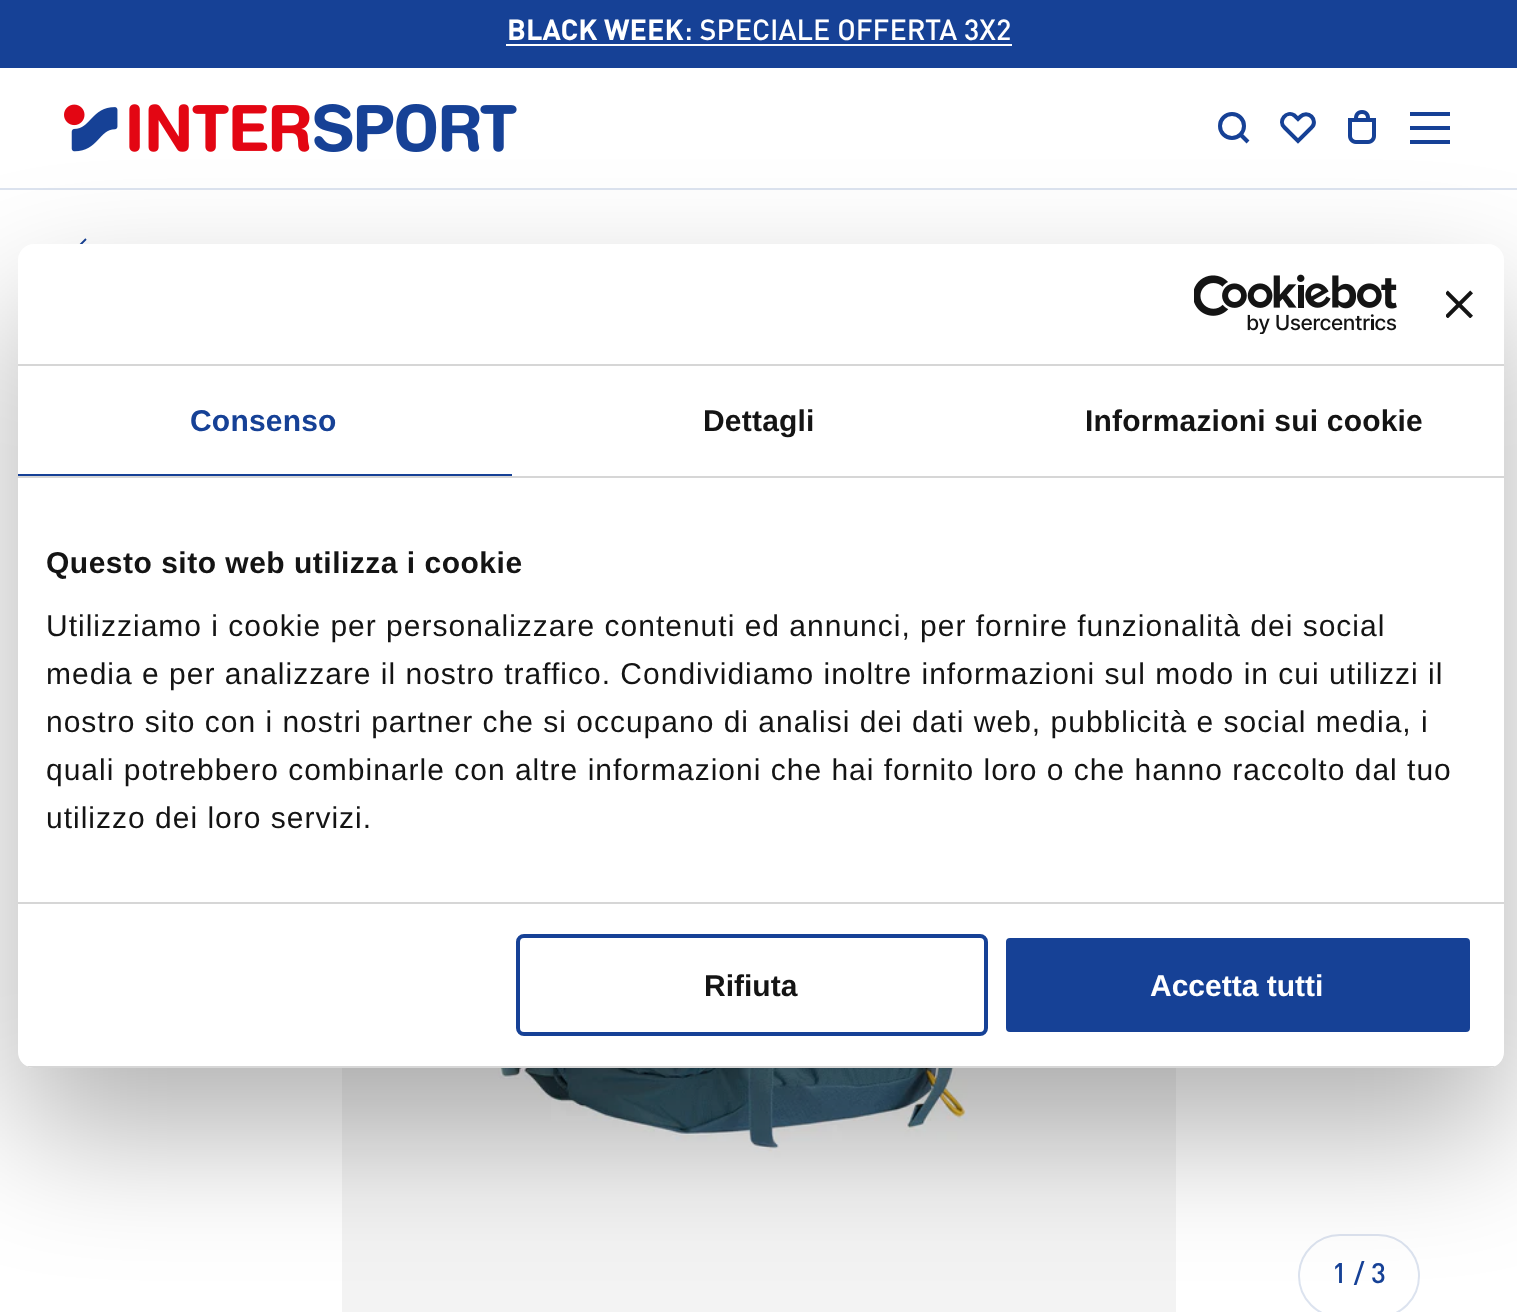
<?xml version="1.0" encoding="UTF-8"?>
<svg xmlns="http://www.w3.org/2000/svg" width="1517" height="1312">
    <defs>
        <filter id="blur1" x="-50%" y="-200%" width="200%" height="500%"><feGaussianBlur stdDeviation="68"/></filter>
        <clipPath id="clip1"><rect x="18" y="244" width="1486" height="824" rx="16"/></clipPath>
    </defs>
    <rect width="100%" height="100%" fill="#FFFFFF"/>
    <rect x="0" y="0" width="1517" height="68" fill="#164196"/>
    <text x="507" y="40" font-family="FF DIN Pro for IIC" font-size="28.75" font-weight="700" fill="#FFFFFF">BLACK WEEK</text>
    <rect x="506" y="44" width="506" height="2" fill="#FFFFFF"/>
    <text x="684" y="40" font-family="FF DIN Pro for IIC" font-size="28.75" font-weight="500" fill="#FFFFFF">: SPECIALE OFFERTA 3X2</text>
    <rect x="0" y="188" width="1517" height="2" fill="#DCE3EF"/>
    <image x="64" y="104" width="453" height="48" href="img_01.png"/>
    <circle cx="1232" cy="126" r="12" fill="none" stroke="#164196" stroke-width="4"/>
    <path d="M 1240 134 L 1248 142" fill="none" stroke="#164196" stroke-width="4"/>
    <path d="M 1284.5 127.5 L 1298 141 L 1311.5 127.5 C 1315 124.5 1314.5 119.5 1311.5 116.5 C 1308.5 113.5 1303.5 113.5 1300.5 116.5 L 1298 119 L 1294.5 115.5 C 1286.5 110 1277.5 121 1284.5 127.5 Z" fill="none" stroke="#164196" stroke-width="4"/>
    <image x="1348" y="110" width="28" height="34" href="img_02.png"/>
    <rect x="1410" y="112" width="40" height="4" fill="#164196"/>
    <rect x="1410" y="140" width="40" height="4" fill="#164196"/>
    <rect x="1410" y="126" width="40" height="4" fill="#164196"/>
    <path d="M 86 257 L 77 248 L 86 239" fill="none" stroke="#164196" stroke-width="1.8"/>
    <image x="342" y="1068" width="834" height="244" href="img_05.png"/>
    <rect x="1299" y="1235" width="120" height="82" rx="41" fill="none" stroke="#DCE3EF" stroke-width="2"/>
    <rect x="18" y="308" width="1486" height="824" rx="16" fill="#000000" fill-opacity="0.3" filter="url(#blur1)"/>
    <rect x="18" y="244" width="1486" height="824" rx="16" fill="#FFFFFF"/>
    <rect x="18" y="364" width="1486" height="2" fill="#D6D6D6"/>
    <image x="1194" y="274" width="203" height="60" href="img_03.png"/>
    <image x="1446" y="290" width="27" height="28" href="img_04.png"/>
    <rect x="18" y="476" width="1486" height="2" fill="#D6D6D6"/>
    <rect x="18" y="474" width="494" height="2" fill="#164196"/>
    <text x="190" y="431" font-family="Liberation Sans" font-size="30" font-weight="700" letter-spacing="0.2" fill="#164196">Consenso</text>
    <text x="703" y="431" font-family="Liberation Sans" font-size="30" font-weight="700" letter-spacing="0.2" fill="#141414">Dettagli</text>
    <text x="1085" y="431" font-family="Liberation Sans" font-size="30" font-weight="700" letter-spacing="0.2" fill="#141414">Informazioni sui cookie</text>
    <rect x="18" y="902" width="1486" height="2" fill="#D6D6D6"/>
    <text x="46" y="573" font-family="Liberation Sans" font-size="30" font-weight="700" letter-spacing="0.5" fill="#141414">Questo sito web utilizza i cookie</text>
    <text font-family="Liberation Sans" font-size="30" letter-spacing="1" fill="#141414">
        <tspan x="46" y="636">Utilizziamo i cookie per personalizzare contenuti ed annunci, per fornire funzionalità dei social</tspan>
        <tspan x="46" y="684">media e per analizzare il nostro traffico. Condividiamo inoltre informazioni sul modo in cui utilizzi il</tspan>
        <tspan x="46" y="732">nostro sito con i nostri partner che si occupano di analisi dei dati web, pubblicità e social media, i</tspan>
        <tspan x="46" y="780">quali potrebbero combinarle con altre informazioni che hai fornito loro o che hanno raccolto dal tuo</tspan>
        <tspan x="46" y="828">utilizzo dei loro servizi.</tspan>
    </text>
    <g clip-path="url(#clip1)">
        <rect x="18" y="1066" width="1486" height="2" fill="#D6D6D6"/>
    </g>
    <rect x="518" y="936" width="468" height="98" rx="6" fill="none" stroke="#164196" stroke-width="4"/>
    <text x="704" y="996" font-family="Liberation Sans" font-size="30" font-weight="700" fill="#141414">Rifiuta</text>
    <rect x="1004" y="936" width="468" height="98" rx="6" fill="#164196" stroke="#FFFFFF" stroke-width="4"/>
    <text x="1150" y="996" font-family="Liberation Sans" font-size="30" font-weight="700" fill="#FFFFFF">Accetta tutti</text>
    <text x="1332" y="1283" font-family="FF DIN Pro for IIC" font-size="28" font-weight="500" fill="#164196">1 / 3</text>
</svg>
